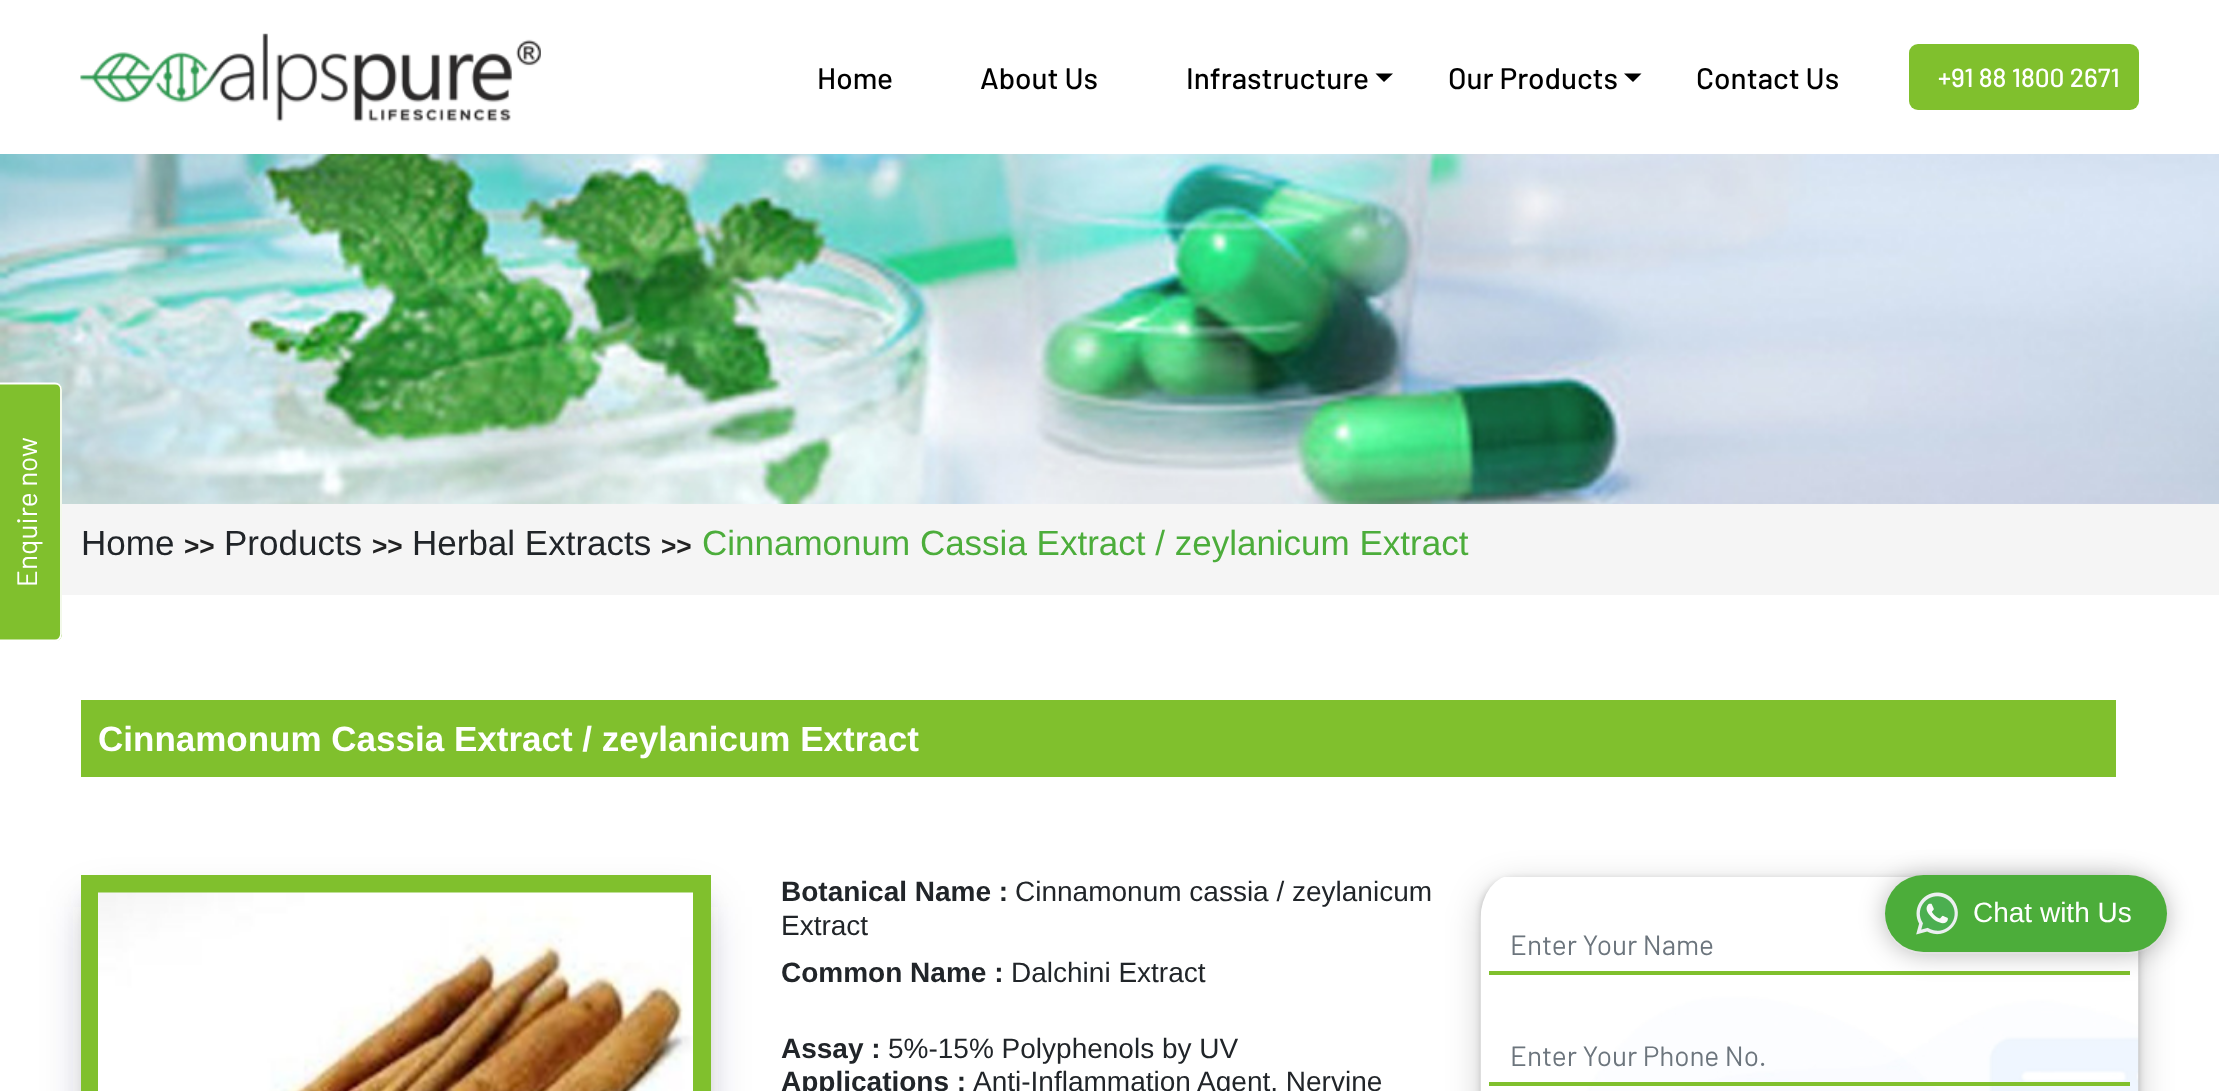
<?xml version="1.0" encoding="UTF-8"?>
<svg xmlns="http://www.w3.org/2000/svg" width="2219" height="1091">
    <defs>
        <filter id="blur1" x="-50%" y="-200%" width="200%" height="500%"><feGaussianBlur stdDeviation="23.5"/></filter>
        <filter id="blur2" x="-50%" y="-200%" width="200%" height="500%"><feGaussianBlur stdDeviation="14"/></filter>
        <filter id="blur3" x="-50%" y="-200%" width="200%" height="500%"><feGaussianBlur stdDeviation="17.5"/></filter>
        <filter id="blur4" x="-50%" y="-200%" width="200%" height="500%"><feGaussianBlur stdDeviation="3.5"/></filter>
        <filter id="blur5" x="-50%" y="-200%" width="200%" height="500%"><feGaussianBlur stdDeviation="13"/></filter>
    </defs>
    <rect width="100%" height="100%" fill="#FFFFFF"/>
    <image x="0" y="154" width="2219" height="350" href="img_02.png"/>
    <path d="M -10 634 V 390 C -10 386 -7 383 -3 383 H 55 C 59 383 62 386 62 390 V 634 C 62 638 59 641 55 641 H -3 C -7 641 -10 638 -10 634 Z" fill="#80C02D"/>
    <path d="M -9 634 V 389.5 C -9 386 -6.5 383.5 -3 383.5 H 55 C 58.5 383.5 61 386 61 389.5 V 634 C 61 637.5 58.5 640.5 55 640.5 H -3 C -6.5 640.5 -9 637.5 -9 634 Z" fill="none" stroke="#FFFFFF" stroke-width="1.8"/>
    <text x="37" y="587" transform="rotate(-90 37 587)" font-family="Barlow" font-size="28" fill="#FFFFFF">Enquire now</text>
    <image x="80" y="33" width="461" height="89" href="img_01.png"/>
    <text x="817" y="89" font-family="Barlow" font-size="29.75" font-weight="500" fill="#000000">Home</text>
    <text x="980" y="89" font-family="Barlow" font-size="29.75" font-weight="500" fill="#000000">About Us</text>
    <text x="1186" y="89" font-family="Barlow" font-size="29.75" font-weight="500" fill="#000000">Infrastructure</text>
    <path d="M 1375.5 73.5 H 1393 L 1384 82 Z" fill="#000000"/>
    <text x="1448" y="89" font-family="Barlow" font-size="29.75" font-weight="500" fill="#000000">Our Products</text>
    <path d="M 1624 73.5 H 1641.5 L 1633 82 Z" fill="#000000"/>
    <text x="1696" y="89" font-family="Barlow" font-size="29.75" font-weight="500" fill="#000000">Contact Us</text>
    <rect x="1909" y="44" width="230" height="66" rx="9" fill="#80C02D"/>
    <text x="1938" y="87" font-family="Barlow" font-size="26.25" font-weight="500" fill="#FFFFFF">+91 88 1800 2671</text>
    <rect x="62" y="504" width="2157" height="91" fill="#F5F5F5"/>
    <text x="81" y="555" font-family="Liberation Sans" font-size="35" fill="#212529">Home</text>
    <text x="184" y="555" font-family="Liberation Sans" font-size="26.25" font-weight="700" fill="#222222">&gt;&gt;</text>
    <text x="224" y="555" font-family="Liberation Sans" font-size="35" fill="#212529">Products</text>
    <text x="372" y="555" font-family="Liberation Sans" font-size="26.25" font-weight="700" fill="#222222">&gt;&gt;</text>
    <text x="412" y="555" font-family="Liberation Sans" font-size="35" fill="#212529">Herbal Extracts</text>
    <text x="661" y="555" font-family="Liberation Sans" font-size="26.25" font-weight="700" fill="#222222">&gt;&gt;</text>
    <text x="702" y="555" font-family="Liberation Sans" font-size="35" fill="#4CAD3B">Cinnamonum Cassia Extract / zeylanicum Extract</text>
    <rect x="81" y="700" width="2035" height="77" fill="#80C02D"/>
    <text x="98" y="751" font-family="Liberation Sans" font-size="35" font-weight="700" fill="#FFFFFF">Cinnamonum Cassia Extract / zeylanicum Extract</text>
    <rect x="89" y="907" width="613" height="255" fill="#32325D" fill-opacity="0.25" filter="url(#blur1)"/>
    <rect x="95" y="903" width="602" height="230" fill="#000000" fill-opacity="0.3" filter="url(#blur2)"/>
    <rect x="90" y="884" width="612" height="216" fill="none" stroke="#80C02D" stroke-width="18"/>
    <image x="98" y="892" width="595" height="199" href="img_03.png"/>
    <text x="781" y="901" font-family="Liberation Sans" font-size="28" font-weight="700" fill="#212529">Botanical Name :</text>
    <text x="1015" y="901" font-family="Liberation Sans" font-size="28" fill="#212529">Cinnamonum cassia / zeylanicum</text>
    <text x="781" y="935" font-family="Liberation Sans" font-size="28" fill="#212529">Extract</text>
    <text x="781" y="982" font-family="Liberation Sans" font-size="28" font-weight="700" fill="#212529">Common Name :</text>
    <text x="1011" y="982" font-family="Liberation Sans" font-size="28" fill="#212529">Dalchini Extract</text>
    <text x="781" y="1058" font-family="Liberation Sans" font-size="28" font-weight="700" fill="#212529">Assay :</text>
    <text x="888" y="1058" font-family="Liberation Sans" font-size="28" fill="#212529">5%-15% Polyphenols by UV</text>
    <text x="781" y="1091" font-family="Liberation Sans" font-size="28" font-weight="700" fill="#212529">Applications :</text>
    <text x="973" y="1091" font-family="Liberation Sans" font-size="28" fill="#212529">Anti-Inflammation Agent, Nervine</text>
    <rect x="1481" y="886" width="658" height="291" rx="33" fill="#000000" fill-opacity="0.19" filter="url(#blur3)"/>
    <rect x="1481" y="879" width="658" height="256" rx="33" fill="#000000" fill-opacity="0.2" filter="url(#blur4)"/>
    <image x="1480" y="877" width="659" height="214" href="img_04.png"/>
    <rect x="1489" y="971" width="641" height="4" fill="#80C02D"/>
    <text x="1510" y="955" font-family="Barlow" font-size="28" fill="#6C757D">Enter Your Name</text>
    <rect x="1489" y="1082" width="641" height="4" fill="#80C02D"/>
    <text x="1510" y="1066" font-family="Barlow" font-size="28" fill="#6C757D">Enter Your Phone No.</text>
    <rect x="1885" y="877" width="282" height="77" rx="38.5" fill="#202124" fill-opacity="0.28" filter="url(#blur5)"/>
    <rect x="1885" y="875" width="282" height="77" rx="38.5" fill="#4CAD3A"/>
    <image x="1916" y="892" width="42" height="43" href="img_05.png"/>
    <text x="1973" y="922" font-family="Liberation Sans" font-size="28" fill="#FFFFFF">Chat with Us</text>
</svg>
